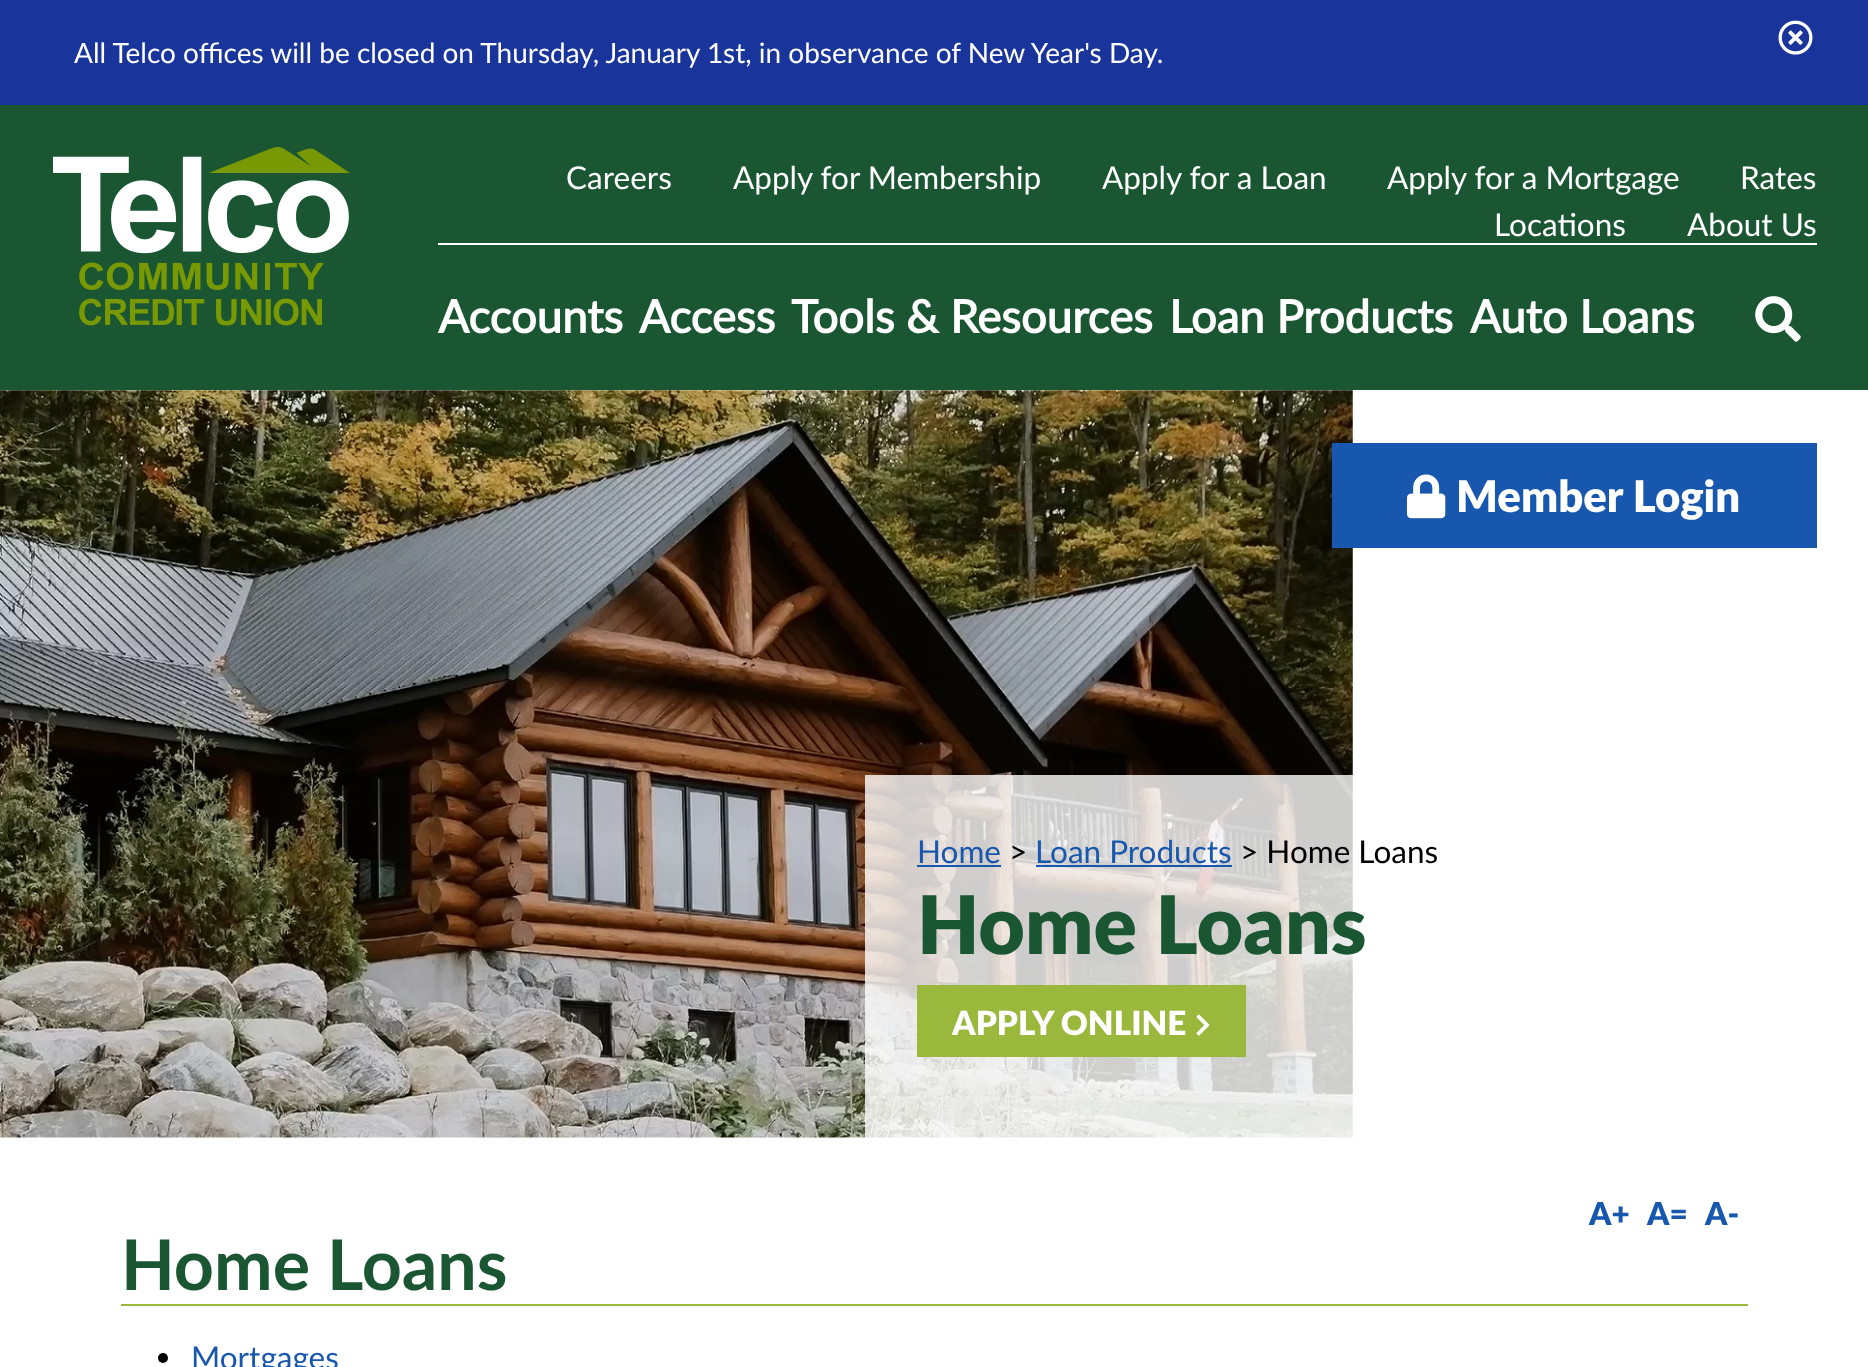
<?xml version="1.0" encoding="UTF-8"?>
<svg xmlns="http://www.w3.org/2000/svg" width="1868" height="1367">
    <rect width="100%" height="100%" fill="#FFFFFF"/>
    <rect x="0" y="0" width="1868" height="105" fill="#19349A"/>
    <text x="74" y="63" font-family="Lato" font-size="28" fill="#FFFFFF">All Telco offices will be closed on Thursday, January 1st, in observance of New Year's Day.</text>
    <image x="1778" y="20" width="35" height="35" href="img_01.png"/>
    <rect x="0" y="105" width="1868" height="285" fill="#1A5632"/>
    <image x="53" y="147" width="297" height="179" href="img_02.png"/>
    <rect x="438" y="243" width="1379" height="2" fill="#FFFFFF"/>
    <text x="566" y="189" font-family="Lato" font-size="31.5" fill="#FFFFFF">Careers</text>
    <text x="733" y="189" font-family="Lato" font-size="31.5" fill="#FFFFFF">Apply for Membership</text>
    <text x="1102" y="189" font-family="Lato" font-size="31.5" fill="#FFFFFF">Apply for a Loan</text>
    <text x="1387" y="189" font-family="Lato" font-size="31.5" fill="#FFFFFF">Apply for a Mortgage</text>
    <text x="1740" y="189" font-family="Lato" font-size="31.5" fill="#FFFFFF">Rates</text>
    <text x="1494" y="236" font-family="Lato" font-size="31.5" fill="#FFFFFF">Locations</text>
    <text x="1687" y="236" font-family="Lato" font-size="31.5" fill="#FFFFFF">About Us</text>
    <image x="1755" y="296" width="46" height="46" href="img_03.png"/>
    <text x="438" y="333" font-family="'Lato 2'" font-size="45.5" font-weight="700" fill="#FFFFFF">Accounts</text>
    <text x="639" y="333" font-family="'Lato 2'" font-size="45.5" font-weight="700" fill="#FFFFFF">Access</text>
    <text x="791" y="333" font-family="'Lato 2'" font-size="45.5" font-weight="700" fill="#FFFFFF">Tools &amp; Resources</text>
    <text x="1169" y="333" font-family="'Lato 2'" font-size="45.5" font-weight="700" fill="#FFFFFF">Loan Products</text>
    <text x="1470" y="333" font-family="'Lato 2'" font-size="45.5" font-weight="700" fill="#FFFFFF">Auto Loans</text>
    <image x="0" y="390" width="1353" height="748" href="img_05.png"/>
    <rect x="1332" y="443" width="485" height="105" fill="#1857AE"/>
    <image x="1407" y="474" width="39" height="45" href="img_04.png"/>
    <text x="1456" y="512" font-family="Lato" font-size="43.75" font-weight="900" fill="#FFFFFF">Member Login</text>
    <rect x="865" y="775" width="488" height="363" fill="#FFFFFF" fill-opacity="0.8"/>
    <text x="917" y="863" font-family="Lato" font-size="31.5" fill="#1857AE">Home</text>
    <rect x="917" y="865" width="84" height="2" fill="#1857AE"/>
    <text x="1009" y="863" font-family="Lato" font-size="31.5" fill="#000000">&gt;</text>
    <text x="1035" y="863" font-family="Lato" font-size="31.5" fill="#1857AE">Loan Products</text>
    <rect x="1036" y="865" width="196" height="2" fill="#1857AE"/>
    <text x="1240" y="863" font-family="Lato" font-size="31.5" fill="#000000">&gt; Home Loans</text>
    <text x="917" y="954" font-family="Lato" font-size="80.5" font-weight="900" fill="#1A5632">Home Loans</text>
    <rect x="917" y="985" width="329" height="72" fill="#99B83C"/>
    <text x="952" y="1035" font-family="Lato" font-size="33.25" font-weight="900" fill="#FFFFFF">APPLY ONLINE</text>
    <image x="1196" y="1014" width="14" height="22" href="img_06.png"/>
    <text x="1589" y="1225" font-family="Lato" font-size="31.5" font-weight="900" fill="#1857AE">A+</text>
    <text x="1647" y="1225" font-family="Lato" font-size="31.5" font-weight="900" fill="#1857AE">A=</text>
    <text x="1705" y="1225" font-family="Lato" font-size="31.5" font-weight="900" fill="#1857AE">A-</text>
    <rect x="121" y="1304" width="1627" height="2" fill="#99B83C"/>
    <text x="121" y="1290" font-family="Lato" font-size="70" font-weight="700" fill="#1A5632">Home Loans</text>
    <circle cx="163" cy="1358" r="5" fill="#000000"/>
    <text x="191" y="1369" font-family="Lato" font-size="31.5" fill="#1857AE">Mortgages</text>
</svg>
